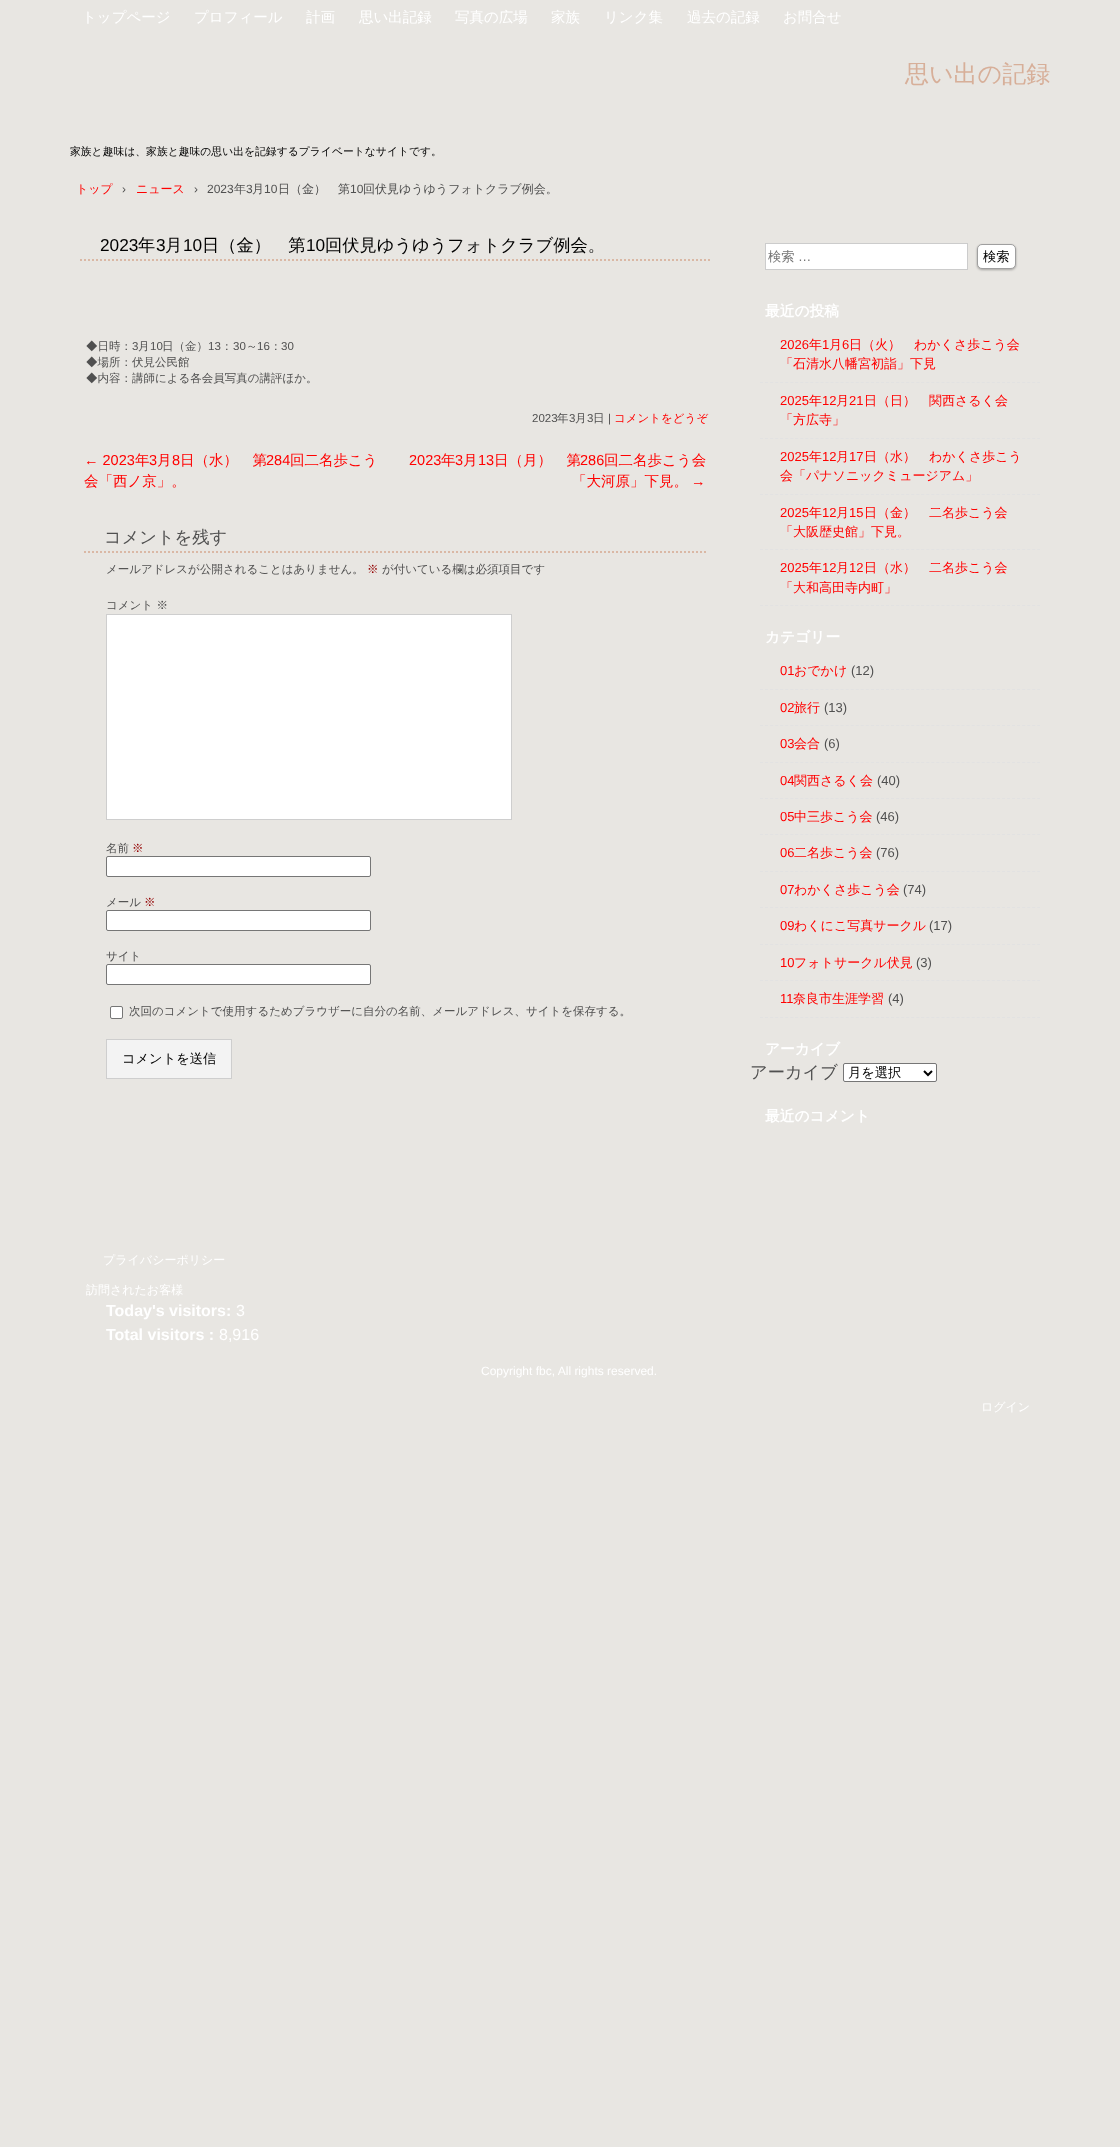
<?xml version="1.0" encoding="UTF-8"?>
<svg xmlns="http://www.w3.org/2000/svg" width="1120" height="2147">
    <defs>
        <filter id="blur1" x="-50%" y="-200%" width="200%" height="500%"><feGaussianBlur stdDeviation="1"/></filter>
    </defs>
    <rect width="100%" height="100%" fill="#E8E6E2"/>
    <text x="82" y="22" font-family="WenQuanYi Zen Hei" font-size="14.5" font-weight="500" fill="#FFFFFF">トップページ</text>
    <text x="194" y="22" font-family="WenQuanYi Zen Hei" font-size="14.5" font-weight="500" fill="#FFFFFF">プロフィール</text>
    <text x="306" y="22" font-family="WenQuanYi Zen Hei" font-size="14.5" font-weight="500" fill="#FFFFFF">計画</text>
    <text x="359" y="22" font-family="WenQuanYi Zen Hei" font-size="14.5" font-weight="500" fill="#FFFFFF">思い出記録</text>
    <text x="455" y="22" font-family="WenQuanYi Zen Hei" font-size="14.5" font-weight="500" fill="#FFFFFF">写真の広場</text>
    <text x="551" y="22" font-family="WenQuanYi Zen Hei" font-size="14.5" font-weight="500" fill="#FFFFFF">家族</text>
    <text x="604" y="22" font-family="WenQuanYi Zen Hei" font-size="14.5" font-weight="500" fill="#FFFFFF">リンク集</text>
    <text x="687" y="22" font-family="WenQuanYi Zen Hei" font-size="14.5" font-weight="500" fill="#FFFFFF">過去の記録</text>
    <text x="783" y="22" font-family="WenQuanYi Zen Hei" font-size="14.5" font-weight="500" fill="#FFFFFF">お問合せ</text>
    <text x="905" y="82" font-family="WenQuanYi Zen Hei" font-size="24" font-weight="500" fill="#D7AF99">思い出の記録</text>
    <text x="70" y="155" font-family="WenQuanYi Zen Hei" font-size="10.8" font-weight="500" fill="#000000">家族と趣味は、家族と趣味の思い出を記録するプライベートなサイトです。</text>
    <text x="76" y="193" font-family="WenQuanYi Zen Hei" font-size="12" font-weight="500" fill="#FF0000">トップ</text>
    <text x="122" y="193" font-family="Liberation Sans" font-size="12" fill="#505050">›</text>
    <text x="136" y="193" font-family="WenQuanYi Zen Hei" font-size="12" font-weight="500" fill="#FF0000">ニュース</text>
    <text x="194" y="193" font-family="Liberation Sans" font-size="12" fill="#505050">›</text>
    <text x="207" y="193" font-family="Liberation Sans" font-size="12" fill="#505050">2023</text>
    <text x="234" y="193" font-family="WenQuanYi Zen Hei" font-size="12" font-weight="500" fill="#505050">年</text>
    <text x="246" y="193" font-family="Liberation Sans" font-size="12" fill="#505050">3</text>
    <text x="252" y="193" font-family="WenQuanYi Zen Hei" font-size="12" font-weight="500" fill="#505050">月</text>
    <text x="264" y="193" font-family="Liberation Sans" font-size="12" fill="#505050">10</text>
    <text x="278" y="193" font-family="WenQuanYi Zen Hei" font-size="12" font-weight="500" fill="#505050">日（金）　第</text>
    <text x="350" y="193" font-family="Liberation Sans" font-size="12" fill="#505050">10</text>
    <text x="363" y="193" font-family="WenQuanYi Zen Hei" font-size="12" font-weight="500" fill="#505050">回伏見ゆうゆうフォトクラブ例会。</text>
    <path d="M 80 260 H 710" fill="none" stroke="#DAB8A5" stroke-width="2" stroke-dasharray="2 2"/>
    <text x="100" y="251" font-family="Liberation Sans" font-size="17.25" fill="#000000">2023</text>
    <text x="138" y="251" font-family="WenQuanYi Zen Hei" font-size="17.25" font-weight="500" fill="#000000">年</text>
    <text x="156" y="251" font-family="Liberation Sans" font-size="17.25" fill="#000000">3</text>
    <text x="165" y="251" font-family="WenQuanYi Zen Hei" font-size="17.25" font-weight="500" fill="#000000">月</text>
    <text x="183" y="251" font-family="Liberation Sans" font-size="17.25" fill="#000000">10</text>
    <text x="202" y="251" font-family="WenQuanYi Zen Hei" font-size="17.25" font-weight="500" fill="#000000">日（金）　第</text>
    <text x="306" y="251" font-family="Liberation Sans" font-size="17.25" fill="#000000">10</text>
    <text x="325" y="251" font-family="WenQuanYi Zen Hei" font-size="17.25" font-weight="500" fill="#000000">回伏見ゆうゆうフォトクラブ例会。</text>
    <text x="86" y="350" font-family="WenQuanYi Zen Hei" font-size="11.5" font-weight="500" fill="#505050">◆日時：</text>
    <text x="132" y="350" font-family="Liberation Sans" font-size="11.5" fill="#505050">3</text>
    <text x="138" y="350" font-family="WenQuanYi Zen Hei" font-size="11.5" font-weight="500" fill="#505050">月</text>
    <text x="150" y="350" font-family="Liberation Sans" font-size="11.5" fill="#505050">10</text>
    <text x="162" y="350" font-family="WenQuanYi Zen Hei" font-size="11.5" font-weight="500" fill="#505050">日（金）</text>
    <text x="208" y="350" font-family="Liberation Sans" font-size="11.5" fill="#505050">13</text>
    <text x="221" y="350" font-family="WenQuanYi Zen Hei" font-size="11.5" font-weight="500" fill="#505050">：</text>
    <text x="233" y="350" font-family="Liberation Sans" font-size="11.5" fill="#505050">30</text>
    <text x="246" y="350" font-family="WenQuanYi Zen Hei" font-size="11.5" font-weight="500" fill="#505050">～</text>
    <text x="257" y="350" font-family="Liberation Sans" font-size="11.5" fill="#505050">16</text>
    <text x="270" y="350" font-family="WenQuanYi Zen Hei" font-size="11.5" font-weight="500" fill="#505050">：</text>
    <text x="281" y="350" font-family="Liberation Sans" font-size="11.5" fill="#505050">30</text>
    <text font-family="WenQuanYi Zen Hei" font-size="11.5" font-weight="500" fill="#505050">
        <tspan x="86" y="366">◆場所：伏見公民館</tspan>
        <tspan x="86" y="382">◆内容：講師による各会員写真の講評ほか。</tspan>
    </text>
    <text x="532" y="422" font-family="Liberation Sans" font-size="11.5" fill="#505050">2023</text>
    <text x="557" y="422" font-family="WenQuanYi Zen Hei" font-size="11.5" font-weight="500" fill="#505050">年</text>
    <text x="569" y="422" font-family="Liberation Sans" font-size="11.5" fill="#505050">3</text>
    <text x="575" y="422" font-family="WenQuanYi Zen Hei" font-size="11.5" font-weight="500" fill="#505050">月</text>
    <text x="587" y="422" font-family="Liberation Sans" font-size="11.5" fill="#505050">3</text>
    <text x="593" y="422" font-family="WenQuanYi Zen Hei" font-size="11.5" font-weight="500" fill="#505050">日</text>
    <text x="608" y="422" font-family="Liberation Sans" font-size="11.5" fill="#505050">|</text>
    <text x="614" y="422" font-family="WenQuanYi Zen Hei" font-size="11.5" font-weight="500" fill="#FF0000">コメントをどうぞ</text>
    <text x="84" y="465" font-family="Liberation Sans" font-size="14.5" fill="#FF0000">← 2023</text>
    <text x="135" y="465" font-family="WenQuanYi Zen Hei" font-size="14.5" font-weight="500" fill="#FF0000">年</text>
    <text x="149" y="465" font-family="Liberation Sans" font-size="14.5" fill="#FF0000">3</text>
    <text x="157" y="465" font-family="WenQuanYi Zen Hei" font-size="14.5" font-weight="500" fill="#FF0000">月</text>
    <text x="172" y="465" font-family="Liberation Sans" font-size="14.5" fill="#FF0000">8</text>
    <text x="180" y="465" font-family="WenQuanYi Zen Hei" font-size="14.5" font-weight="500" fill="#FF0000">日（水）　第</text>
    <text x="266" y="465" font-family="Liberation Sans" font-size="14.5" fill="#FF0000">284</text>
    <text x="290" y="465" font-family="WenQuanYi Zen Hei" font-size="14.5" font-weight="500" fill="#FF0000">回二名歩こう</text>
    <text x="84" y="486" font-family="WenQuanYi Zen Hei" font-size="14.5" font-weight="500" fill="#FF0000">会「西ノ京」。</text>
    <text x="409" y="465" font-family="Liberation Sans" font-size="14.5" fill="#FF0000">2023</text>
    <text x="441" y="465" font-family="WenQuanYi Zen Hei" font-size="14.5" font-weight="500" fill="#FF0000">年</text>
    <text x="455" y="465" font-family="Liberation Sans" font-size="14.5" fill="#FF0000">3</text>
    <text x="463" y="465" font-family="WenQuanYi Zen Hei" font-size="14.5" font-weight="500" fill="#FF0000">月</text>
    <text x="478" y="465" font-family="Liberation Sans" font-size="14.5" fill="#FF0000">13</text>
    <text x="494" y="465" font-family="WenQuanYi Zen Hei" font-size="14.5" font-weight="500" fill="#FF0000">日（月）　第</text>
    <text x="580" y="465" font-family="Liberation Sans" font-size="14.5" fill="#FF0000">286</text>
    <text x="604" y="465" font-family="WenQuanYi Zen Hei" font-size="14.5" font-weight="500" fill="#FF0000">回二名歩こう会</text>
    <text x="572" y="486" font-family="WenQuanYi Zen Hei" font-size="14.5" font-weight="500" fill="#FF0000">「大河原」下見。</text>
    <text x="691" y="486" font-family="Liberation Sans" font-size="14.5" fill="#FF0000">→</text>
    <path d="M 84 552 H 706" fill="none" stroke="#DAB8A5" stroke-width="2" stroke-dasharray="2 2"/>
    <text x="104" y="543" font-family="WenQuanYi Zen Hei" font-size="17.25" font-weight="500" fill="#505050">コメントを残す</text>
    <text x="106" y="573" font-family="WenQuanYi Zen Hei" font-size="11.5" font-weight="500" fill="#505050">メールアドレスが公開されることはありません。</text>
    <text x="367" y="573" font-family="WenQuanYi Zen Hei" font-size="11.5" font-weight="500" fill="#940303">※</text>
    <text x="382" y="573" font-family="WenQuanYi Zen Hei" font-size="11.5" font-weight="500" fill="#505050">が付いている欄は必須項目です</text>
    <text x="106" y="609" font-family="WenQuanYi Zen Hei" font-size="11.5" font-weight="500" fill="#505050">コメント ※</text>
    <rect x="106.5" y="614.5" width="405" height="205" fill="#FFFFFF" stroke="#CECECE"/>
    <text x="106" y="852" font-family="WenQuanYi Zen Hei" font-size="11.5" font-weight="500" fill="#505050">名前</text>
    <text x="132" y="852" font-family="WenQuanYi Zen Hei" font-size="11.5" font-weight="500" fill="#940303">※</text>
    <rect x="106.5" y="856.5" width="264" height="20" rx="1.5" fill="#FFFFFF" stroke="#767676"/>
    <text x="106" y="906" font-family="WenQuanYi Zen Hei" font-size="11.5" font-weight="500" fill="#505050">メール</text>
    <text x="144" y="906" font-family="WenQuanYi Zen Hei" font-size="11.5" font-weight="500" fill="#940303">※</text>
    <rect x="106.5" y="910.5" width="264" height="20" rx="1.5" fill="#FFFFFF" stroke="#767676"/>
    <text x="106" y="960" font-family="WenQuanYi Zen Hei" font-size="11.5" font-weight="500" fill="#505050">サイト</text>
    <rect x="106.5" y="964.5" width="264" height="20" rx="1.5" fill="#FFFFFF" stroke="#767676"/>
    <rect x="110.5" y="1006.5" width="12" height="12" rx="1.5" fill="#FFFFFF" stroke="#767676"/>
    <text x="129" y="1015" font-family="WenQuanYi Zen Hei" font-size="11.5" font-weight="500" fill="#505050">次回のコメントで使用するためブラウザーに自分の名前、メールアドレス、サイトを保存する。</text>
    <rect x="106.5" y="1039.5" width="125" height="39" fill="#F3F3F3" stroke="#CECECE"/>
    <text x="122" y="1063" font-family="WenQuanYi Zen Hei" font-size="13.25" font-weight="500" fill="#000000">コメントを送信</text>
    <rect x="765.5" y="243.5" width="202" height="26" fill="#FFFFFF" stroke="#CCCCCC"/>
    <text x="768" y="261" font-family="WenQuanYi Zen Hei" font-size="13.25" font-weight="500" fill="#757575">検索</text>
    <text x="798" y="261" font-family="Liberation Sans" font-size="13.25" fill="#757575">…</text>
    <rect x="977" y="245" width="39" height="25" rx="5" fill="#000000" fill-opacity="0.3" filter="url(#blur1)"/>
    <rect x="977.5" y="244.5" width="38" height="24" rx="4.5" fill="#FFFFFF" stroke="#9F9F9F"/>
    <text x="983" y="261" font-family="WenQuanYi Zen Hei" font-size="13.25" font-weight="500" fill="#000000">検索</text>
    <text x="765" y="316" font-family="WenQuanYi Zen Hei" font-size="14.75" font-weight="700" fill="#FFFFFF">最近の投稿</text>
    <path d="M 760 382.5 H 1040" fill="none" stroke="#E2E2E2" stroke-dasharray="3 2.04"/>
    <text x="780" y="349" font-family="Liberation Sans" font-size="13" fill="#FF0000">2026</text>
    <text x="809" y="349" font-family="WenQuanYi Zen Hei" font-size="13" font-weight="500" fill="#FF0000">年</text>
    <text x="822" y="349" font-family="Liberation Sans" font-size="13" fill="#FF0000">1</text>
    <text x="829" y="349" font-family="WenQuanYi Zen Hei" font-size="13" font-weight="500" fill="#FF0000">月</text>
    <text x="842" y="349" font-family="Liberation Sans" font-size="13" fill="#FF0000">6</text>
    <text x="849" y="349" font-family="WenQuanYi Zen Hei" font-size="13" font-weight="500" fill="#FF0000">日（火）　わかくさ歩こう会</text>
    <text x="780" y="368" font-family="WenQuanYi Zen Hei" font-size="13" font-weight="500" fill="#FF0000">「石清水八幡宮初詣」下見</text>
    <path d="M 760 438.5 H 1040" fill="none" stroke="#E2E2E2" stroke-dasharray="3 2.04"/>
    <text x="780" y="405" font-family="Liberation Sans" font-size="13" fill="#FF0000">2025</text>
    <text x="809" y="405" font-family="WenQuanYi Zen Hei" font-size="13" font-weight="500" fill="#FF0000">年</text>
    <text x="822" y="405" font-family="Liberation Sans" font-size="13" fill="#FF0000">12</text>
    <text x="836" y="405" font-family="WenQuanYi Zen Hei" font-size="13" font-weight="500" fill="#FF0000">月</text>
    <text x="849" y="405" font-family="Liberation Sans" font-size="13" fill="#FF0000">21</text>
    <text x="864" y="405" font-family="WenQuanYi Zen Hei" font-size="13" font-weight="500" fill="#FF0000">日（日）　関西さるく会</text>
    <text x="780" y="424" font-family="WenQuanYi Zen Hei" font-size="13" font-weight="500" fill="#FF0000">「方広寺」</text>
    <path d="M 760 494.5 H 1040" fill="none" stroke="#E2E2E2" stroke-dasharray="3 2.04"/>
    <text x="780" y="461" font-family="Liberation Sans" font-size="13" fill="#FF0000">2025</text>
    <text x="809" y="461" font-family="WenQuanYi Zen Hei" font-size="13" font-weight="500" fill="#FF0000">年</text>
    <text x="822" y="461" font-family="Liberation Sans" font-size="13" fill="#FF0000">12</text>
    <text x="836" y="461" font-family="WenQuanYi Zen Hei" font-size="13" font-weight="500" fill="#FF0000">月</text>
    <text x="849" y="461" font-family="Liberation Sans" font-size="13" fill="#FF0000">17</text>
    <text x="864" y="461" font-family="WenQuanYi Zen Hei" font-size="13" font-weight="500" fill="#FF0000">日（水）　わかくさ歩こう</text>
    <text x="780" y="480" font-family="WenQuanYi Zen Hei" font-size="13" font-weight="500" fill="#FF0000">会「パナソニックミュージアム」</text>
    <path d="M 760 549.5 H 1040" fill="none" stroke="#E2E2E2" stroke-dasharray="3 2.04"/>
    <text x="780" y="517" font-family="Liberation Sans" font-size="13" fill="#FF0000">2025</text>
    <text x="809" y="517" font-family="WenQuanYi Zen Hei" font-size="13" font-weight="500" fill="#FF0000">年</text>
    <text x="822" y="517" font-family="Liberation Sans" font-size="13" fill="#FF0000">12</text>
    <text x="836" y="517" font-family="WenQuanYi Zen Hei" font-size="13" font-weight="500" fill="#FF0000">月</text>
    <text x="849" y="517" font-family="Liberation Sans" font-size="13" fill="#FF0000">15</text>
    <text x="864" y="517" font-family="WenQuanYi Zen Hei" font-size="13" font-weight="500" fill="#FF0000">日（金）　二名歩こう会</text>
    <text x="780" y="536" font-family="WenQuanYi Zen Hei" font-size="13" font-weight="500" fill="#FF0000">「大阪歴史館」下見。</text>
    <path d="M 760 605.5 H 1040" fill="none" stroke="#E2E2E2" stroke-dasharray="3 2.04"/>
    <text x="780" y="572" font-family="Liberation Sans" font-size="13" fill="#FF0000">2025</text>
    <text x="809" y="572" font-family="WenQuanYi Zen Hei" font-size="13" font-weight="500" fill="#FF0000">年</text>
    <text x="822" y="572" font-family="Liberation Sans" font-size="13" fill="#FF0000">12</text>
    <text x="836" y="572" font-family="WenQuanYi Zen Hei" font-size="13" font-weight="500" fill="#FF0000">月</text>
    <text x="849" y="572" font-family="Liberation Sans" font-size="13" fill="#FF0000">12</text>
    <text x="864" y="572" font-family="WenQuanYi Zen Hei" font-size="13" font-weight="500" fill="#FF0000">日（水）　二名歩こう会</text>
    <text x="780" y="592" font-family="WenQuanYi Zen Hei" font-size="13" font-weight="500" fill="#FF0000">「大和高田寺内町」</text>
    <text x="765" y="642" font-family="WenQuanYi Zen Hei" font-size="14.75" font-weight="700" fill="#FFFFFF">カテゴリー</text>
    <path d="M 760 689.5 H 1040" fill="none" stroke="#E2E2E2" stroke-dasharray="3 2.04"/>
    <text x="780" y="675" font-family="Liberation Sans" font-size="13" fill="#FF0000">01</text>
    <text x="794" y="675" font-family="WenQuanYi Zen Hei" font-size="13" font-weight="500" fill="#FF0000">おでかけ</text>
    <text x="851" y="675" font-family="Liberation Sans" font-size="13" fill="#505050">(12)</text>
    <path d="M 760 725.5 H 1040" fill="none" stroke="#E2E2E2" stroke-dasharray="3 2.04"/>
    <text x="780" y="712" font-family="Liberation Sans" font-size="13" fill="#FF0000">02</text>
    <text x="794" y="712" font-family="WenQuanYi Zen Hei" font-size="13" font-weight="500" fill="#FF0000">旅行</text>
    <text x="824" y="712" font-family="Liberation Sans" font-size="13" fill="#505050">(13)</text>
    <path d="M 760 762.5 H 1040" fill="none" stroke="#E2E2E2" stroke-dasharray="3 2.04"/>
    <text x="780" y="748" font-family="Liberation Sans" font-size="13" fill="#FF0000">03</text>
    <text x="794" y="748" font-family="WenQuanYi Zen Hei" font-size="13" font-weight="500" fill="#FF0000">会合</text>
    <text x="824" y="748" font-family="Liberation Sans" font-size="13" fill="#505050">(6)</text>
    <path d="M 760 798.5 H 1040" fill="none" stroke="#E2E2E2" stroke-dasharray="3 2.04"/>
    <text x="780" y="785" font-family="Liberation Sans" font-size="13" fill="#FF0000">04</text>
    <text x="794" y="785" font-family="WenQuanYi Zen Hei" font-size="13" font-weight="500" fill="#FF0000">関西さるく会</text>
    <text x="877" y="785" font-family="Liberation Sans" font-size="13" fill="#505050">(40)</text>
    <path d="M 760 834.5 H 1040" fill="none" stroke="#E2E2E2" stroke-dasharray="3 2.04"/>
    <text x="780" y="821" font-family="Liberation Sans" font-size="13" fill="#FF0000">05</text>
    <text x="794" y="821" font-family="WenQuanYi Zen Hei" font-size="13" font-weight="500" fill="#FF0000">中三歩こう会</text>
    <text x="876" y="821" font-family="Liberation Sans" font-size="13" fill="#505050">(46)</text>
    <path d="M 760 871.5 H 1040" fill="none" stroke="#E2E2E2" stroke-dasharray="3 2.04"/>
    <text x="780" y="857" font-family="Liberation Sans" font-size="13" fill="#FF0000">06</text>
    <text x="794" y="857" font-family="WenQuanYi Zen Hei" font-size="13" font-weight="500" fill="#FF0000">二名歩こう会</text>
    <text x="876" y="857" font-family="Liberation Sans" font-size="13" fill="#505050">(76)</text>
    <path d="M 760 907.5 H 1040" fill="none" stroke="#E2E2E2" stroke-dasharray="3 2.04"/>
    <text x="780" y="894" font-family="Liberation Sans" font-size="13" fill="#FF0000">07</text>
    <text x="794" y="894" font-family="WenQuanYi Zen Hei" font-size="13" font-weight="500" fill="#FF0000">わかくさ歩こう会</text>
    <text x="903" y="894" font-family="Liberation Sans" font-size="13" fill="#505050">(74)</text>
    <path d="M 760 944.5 H 1040" fill="none" stroke="#E2E2E2" stroke-dasharray="3 2.04"/>
    <text x="780" y="930" font-family="Liberation Sans" font-size="13" fill="#FF0000">09</text>
    <text x="794" y="930" font-family="WenQuanYi Zen Hei" font-size="13" font-weight="500" fill="#FF0000">わくにこ写真サークル</text>
    <text x="929" y="930" font-family="Liberation Sans" font-size="13" fill="#505050">(17)</text>
    <path d="M 760 980.5 H 1040" fill="none" stroke="#E2E2E2" stroke-dasharray="3 2.04"/>
    <text x="780" y="967" font-family="Liberation Sans" font-size="13" fill="#FF0000">10</text>
    <text x="794" y="967" font-family="WenQuanYi Zen Hei" font-size="13" font-weight="500" fill="#FF0000">フォトサークル伏見</text>
    <text x="916" y="967" font-family="Liberation Sans" font-size="13" fill="#505050">(3)</text>
    <path d="M 760 1017.5 H 1040" fill="none" stroke="#E2E2E2" stroke-dasharray="3 2.04"/>
    <text x="780" y="1003" font-family="Liberation Sans" font-size="13" fill="#FF0000">11</text>
    <text x="793" y="1003" font-family="WenQuanYi Zen Hei" font-size="13" font-weight="500" fill="#FF0000">奈良市生涯学習</text>
    <text x="888" y="1003" font-family="Liberation Sans" font-size="13" fill="#505050">(4)</text>
    <text x="765" y="1054" font-family="WenQuanYi Zen Hei" font-size="14.75" font-weight="700" fill="#FFFFFF">アーカイブ</text>
    <text x="750" y="1078" font-family="WenQuanYi Zen Hei" font-size="17.25" font-weight="500" fill="#505050">アーカイブ</text>
    <rect x="843.5" y="1063.5" width="93" height="18" rx="1.5" fill="#FFFFFF" stroke="#767676"/>
    <path d="M 924 1071 L 928 1075 L 932 1071" fill="none" stroke="#000000" stroke-width="2"/>
    <text x="848" y="1077" font-family="WenQuanYi Zen Hei" font-size="13.25" font-weight="500" fill="#000000">月を選択</text>
    <text x="765" y="1121" font-family="WenQuanYi Zen Hei" font-size="14.75" font-weight="700" fill="#FFFFFF">最近のコメント</text>
    <text x="103" y="1264" font-family="WenQuanYi Zen Hei" font-size="12" font-weight="500" fill="#FFFFFF">プライバシーポリシー</text>
    <text x="86" y="1294" font-family="WenQuanYi Zen Hei" font-size="12" font-weight="500" fill="#FFFFFF">訪問されたお客様</text>
    <text x="106" y="1316" font-family="Liberation Sans" font-size="16" font-weight="700" fill="#FFFFFF">Today's visitors:</text>
    <text x="236" y="1316" font-family="Liberation Sans" font-size="16" fill="#FFFFFF">3</text>
    <text x="106" y="1340" font-family="Liberation Sans" font-size="16" font-weight="700" fill="#FFFFFF">Total visitors :</text>
    <text x="219" y="1340" font-family="Liberation Sans" font-size="16" fill="#FFFFFF">8,916</text>
    <text x="481" y="1375" font-family="Liberation Sans" font-size="12" fill="#FFFFFF">Copyright fbc, All rights reserved.</text>
    <text x="981" y="1411" font-family="WenQuanYi Zen Hei" font-size="12" font-weight="500" fill="#FFFFFF">ログイン</text>
</svg>
